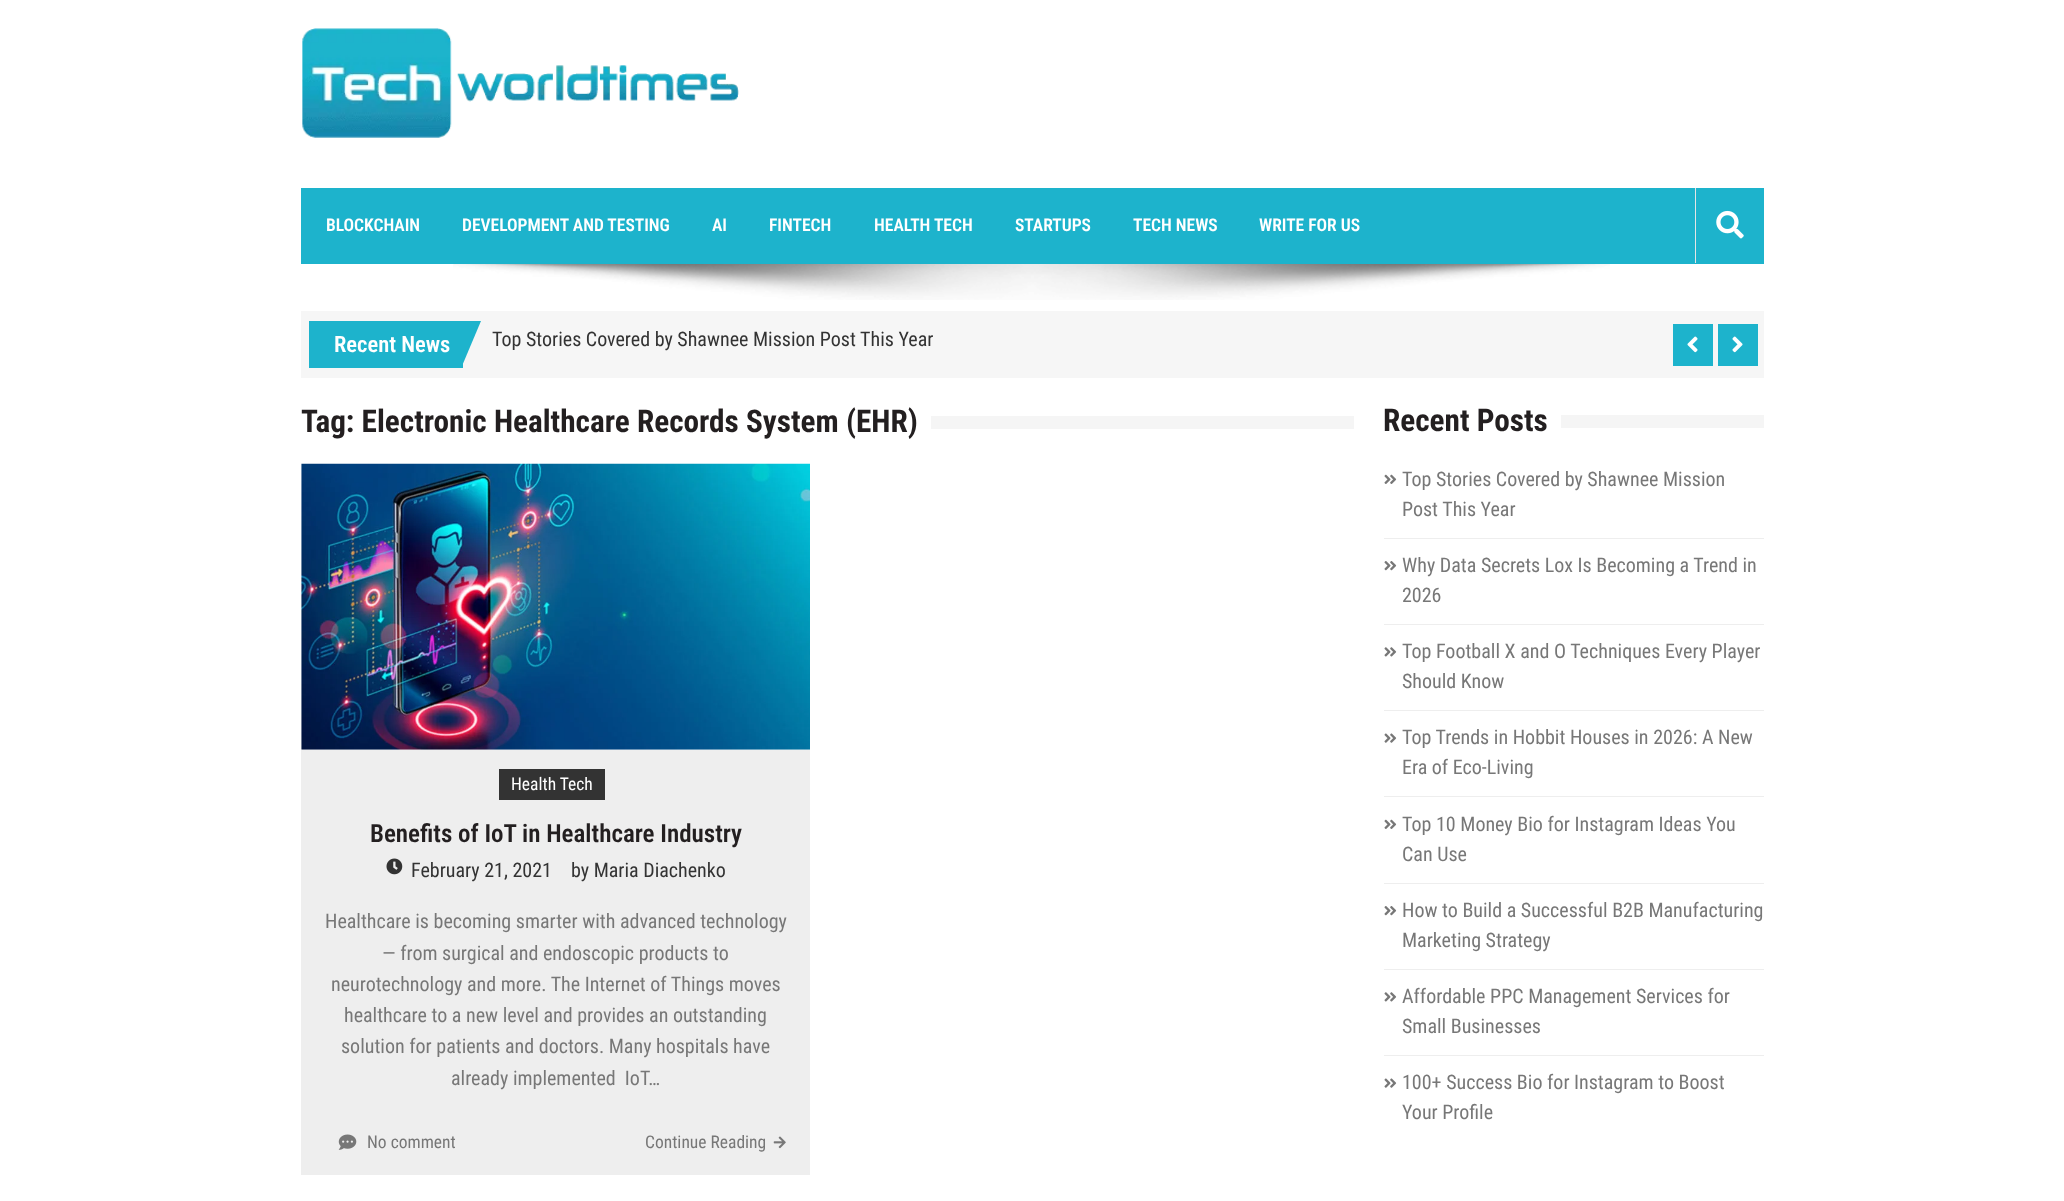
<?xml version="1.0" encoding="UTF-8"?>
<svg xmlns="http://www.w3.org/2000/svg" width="2064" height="1201">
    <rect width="100%" height="100%" fill="#FFFFFF"/>
    <image x="302" y="28" width="437" height="110" href="img_01.png"/>
    <rect x="301" y="188" width="1463" height="76" fill="#1DB3CC"/>
    <text x="326" y="231" font-family="Roboto Condensed" font-size="17.5" font-weight="600" fill="#FFFFFF">BLOCKCHAIN</text>
    <text x="462" y="231" font-family="Roboto Condensed" font-size="17.5" font-weight="600" fill="#FFFFFF">DEVELOPMENT AND TESTING</text>
    <text x="712" y="231" font-family="Roboto Condensed" font-size="17.5" font-weight="600" fill="#FFFFFF">AI</text>
    <text x="769" y="231" font-family="Roboto Condensed" font-size="17.5" font-weight="600" fill="#FFFFFF">FINTECH</text>
    <text x="874" y="231" font-family="Roboto Condensed" font-size="17.5" font-weight="600" fill="#FFFFFF">HEALTH TECH</text>
    <text x="1015" y="231" font-family="Roboto Condensed" font-size="17.5" font-weight="600" fill="#FFFFFF">STARTUPS</text>
    <text x="1133" y="231" font-family="Roboto Condensed" font-size="17.5" font-weight="600" fill="#FFFFFF">TECH NEWS</text>
    <text x="1259" y="231" font-family="Roboto Condensed" font-size="17.5" font-weight="600" fill="#FFFFFF">WRITE FOR US</text>
    <rect x="1695" y="188" width="1" height="75" fill="#E5E5E5"/>
    <image x="1716" y="210" width="28" height="29" href="img_02.png"/>
    <image x="453" y="264" width="1157" height="36" href="img_03.png"/>
    <rect x="301" y="311" width="1463" height="67" fill="#F6F6F6"/>
    <rect x="309" y="321" width="154" height="47" fill="#1DB3CC"/>
    <text x="334" y="352" font-family="Roboto Condensed" font-size="22.5" font-weight="600" fill="#FFFFFF">Recent News</text>
    <path d="M 462 321 H 481 L 462 366 Z" fill="#1DB3CC"/>
    <text x="492" y="346" font-family="Roboto Condensed" font-size="20" fill="#333333">Top Stories Covered by Shawnee Mission Post This Year</text>
    <rect x="1673" y="324" width="40" height="42" fill="#1DB3CC"/>
    <image x="1687" y="336" width="11" height="17" href="img_04.png"/>
    <rect x="1718" y="324" width="40" height="42" fill="#1DB3CC"/>
    <image x="1732" y="336" width="11" height="17" href="img_05.png"/>
    <text x="301" y="432" font-family="Roboto Condensed" font-size="31.25" font-weight="700" fill="#231F20">Tag: Electronic Healthcare Records System (EHR)</text>
    <rect x="931" y="416" width="423" height="13" fill="#F5F5F5"/>
    <image x="301" y="463" width="509" height="287" href="img_06.png"/>
    <rect x="301" y="750" width="509" height="425" fill="#EEEEEE"/>
    <rect x="499" y="769" width="106" height="31" fill="#333333"/>
    <text x="511" y="790" font-family="Roboto Condensed" font-size="17.5" fill="#FFFFFF">Health Tech</text>
    <text x="370" y="842" font-family="Roboto Condensed" font-size="25" font-weight="600" fill="#231F20">Benefits of IoT in Healthcare Industry</text>
    <image x="386" y="858" width="17" height="17" href="img_07.png"/>
    <text x="411" y="877" font-family="Roboto Condensed" font-size="20" fill="#333333">February 21, 2021</text>
    <text x="571" y="877" font-family="Roboto Condensed" font-size="20" fill="#333333">by Maria Diachenko</text>
    <text x="325" y="928" font-family="Roboto Condensed" font-size="20" fill="#777777">Healthcare is becoming smarter with advanced technology</text>
    <text x="382" y="960" font-family="Roboto Condensed" font-size="20" fill="#777777">— from surgical and endoscopic products to</text>
    <text x="331" y="991" font-family="Roboto Condensed" font-size="20" fill="#777777">neurotechnology and more. The Internet of Things moves</text>
    <text x="344" y="1022" font-family="Roboto Condensed" font-size="20" fill="#777777">healthcare to a new level and provides an outstanding</text>
    <text x="341" y="1053" font-family="Roboto Condensed" font-size="20" fill="#777777">solution for patients and doctors. Many hospitals have</text>
    <text x="451" y="1085" font-family="Roboto Condensed" font-size="20" fill="#777777" xml:space="preserve">already implemented  IoT…</text>
    <image x="338" y="1134" width="19" height="16" href="img_08.png"/>
    <text x="367" y="1148" font-family="Roboto Condensed" font-size="17.5" fill="#777777">No comment</text>
    <text x="645" y="1148" font-family="Roboto Condensed" font-size="17.5" fill="#777777">Continue Reading</text>
    <image x="773" y="1136" width="13" height="13" href="img_09.png"/>
    <text x="1383" y="431" font-family="Roboto Condensed" font-size="31.25" font-weight="700" fill="#231F20">Recent Posts</text>
    <rect x="1561" y="415" width="203" height="13" fill="#F5F5F5"/>
    <rect x="1384" y="538" width="380" height="1" fill="#EEEEEE"/>
    <image x="1384" y="474" width="13" height="10" href="img_10.png"/>
    <text font-family="Roboto Condensed" font-size="20" fill="#777777">
        <tspan x="1402" y="486">Top Stories Covered by Shawnee Mission</tspan>
        <tspan x="1402" y="516">Post This Year</tspan>
    </text>
    <rect x="1384" y="624" width="380" height="1" fill="#EEEEEE"/>
    <image x="1384" y="561" width="13" height="10" href="img_11.png"/>
    <text font-family="Roboto Condensed" font-size="20" fill="#777777">
        <tspan x="1402" y="572">Why Data Secrets Lox Is Becoming a Trend in</tspan>
        <tspan x="1402" y="602">2026</tspan>
    </text>
    <rect x="1384" y="710" width="380" height="1" fill="#EEEEEE"/>
    <image x="1384" y="647" width="13" height="10" href="img_12.png"/>
    <text font-family="Roboto Condensed" font-size="20" fill="#777777">
        <tspan x="1402" y="658">Top Football X and O Techniques Every Player</tspan>
        <tspan x="1402" y="688">Should Know</tspan>
    </text>
    <rect x="1384" y="796" width="380" height="1" fill="#EEEEEE"/>
    <image x="1384" y="733" width="13" height="10" href="img_13.png"/>
    <text font-family="Roboto Condensed" font-size="20" fill="#777777">
        <tspan x="1402" y="744">Top Trends in Hobbit Houses in 2026: A New</tspan>
        <tspan x="1402" y="774">Era of Eco-Living</tspan>
    </text>
    <rect x="1384" y="883" width="380" height="1" fill="#EEEEEE"/>
    <image x="1384" y="819" width="13" height="10" href="img_10.png"/>
    <text font-family="Roboto Condensed" font-size="20" fill="#777777">
        <tspan x="1402" y="831">Top 10 Money Bio for Instagram Ideas You</tspan>
        <tspan x="1402" y="861">Can Use</tspan>
    </text>
    <rect x="1384" y="969" width="380" height="1" fill="#EEEEEE"/>
    <image x="1384" y="906" width="13" height="10" href="img_11.png"/>
    <text font-family="Roboto Condensed" font-size="20" fill="#777777">
        <tspan x="1402" y="917">How to Build a Successful B2B Manufacturing</tspan>
        <tspan x="1402" y="947">Marketing Strategy</tspan>
    </text>
    <rect x="1384" y="1055" width="380" height="1" fill="#EEEEEE"/>
    <image x="1384" y="992" width="13" height="10" href="img_12.png"/>
    <text font-family="Roboto Condensed" font-size="20" fill="#777777">
        <tspan x="1402" y="1003">Affordable PPC Management Services for</tspan>
        <tspan x="1402" y="1033">Small Businesses</tspan>
    </text>
    <image x="1384" y="1078" width="13" height="10" href="img_13.png"/>
    <text font-family="Roboto Condensed" font-size="20" fill="#777777">
        <tspan x="1402" y="1089">100+ Success Bio for Instagram to Boost</tspan>
        <tspan x="1402" y="1119">Your Profile</tspan>
    </text>
</svg>
